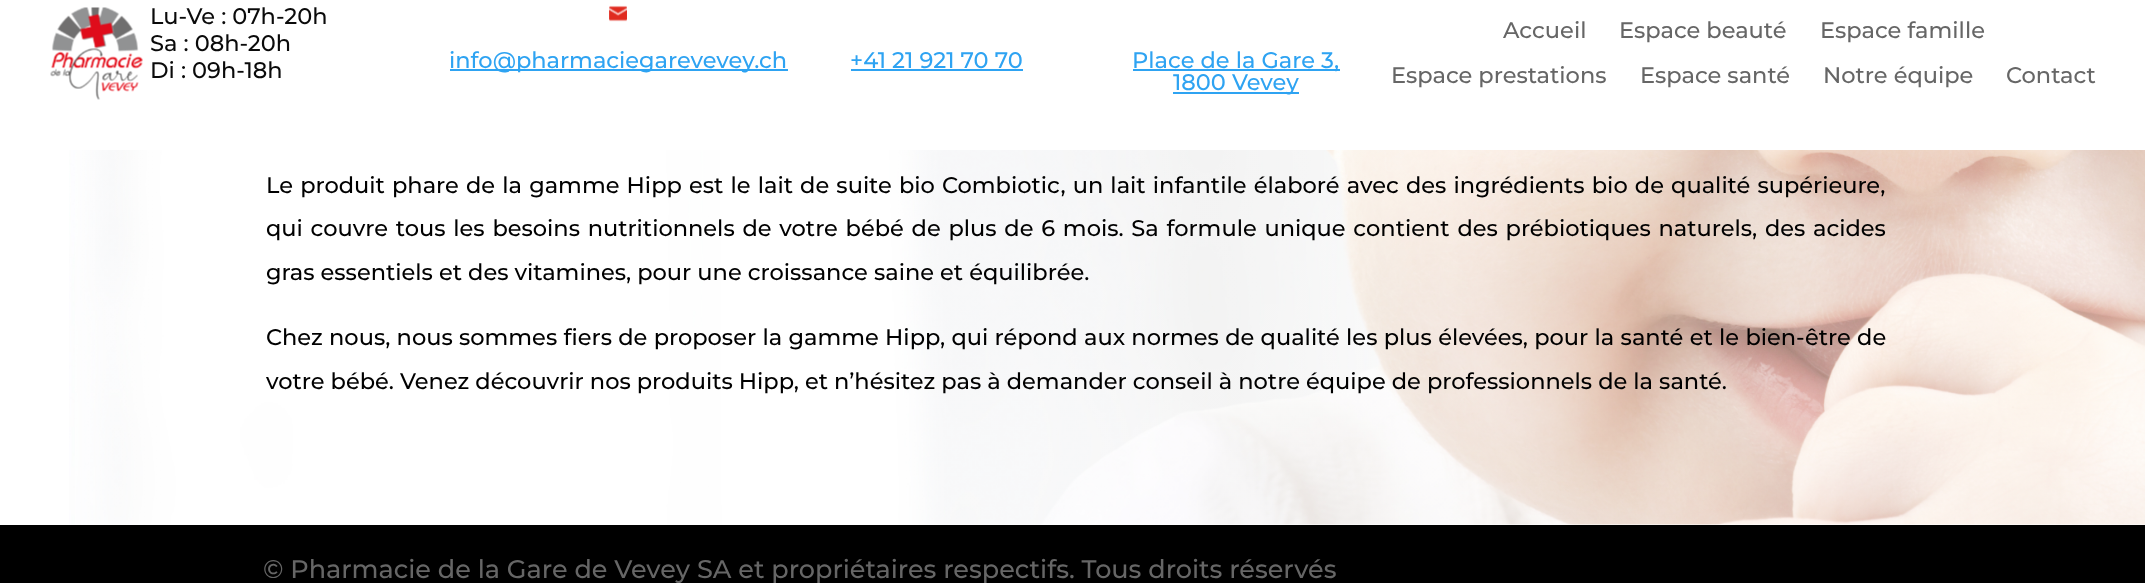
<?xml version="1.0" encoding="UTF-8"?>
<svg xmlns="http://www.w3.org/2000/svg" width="2145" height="583">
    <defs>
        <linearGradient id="g1" gradientUnits="userSpaceOnUse" x1="1073" y1="-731" x2="1073" y2="525"><stop offset="0.01" stop-color="#FFFFFF" stop-opacity="0.39"/><stop offset="1" stop-color="#FFFFFF" stop-opacity="0.49"/></linearGradient>
    </defs>
    <rect width="100%" height="100%" fill="#FFFFFF"/>
    <image x="50" y="7" width="93" height="93" href="img_01.png"/>
    <text font-family="Montserrat" font-size="22.5" font-weight="500" fill="#0A0A0A">
        <tspan x="150" y="24">Lu-Ve : 07h-20h</tspan>
        <tspan x="150" y="51">Sa : 08h-20h</tspan>
        <tspan x="150" y="78">Di : 09h-18h</tspan>
    </text>
    <image x="609" y="5" width="18" height="17" href="img_02.png"/>
    <rect x="450" y="69" width="338" height="2" fill="#2EA3F2"/>
    <text x="449" y="68" font-family="Montserrat" font-size="22.5" font-weight="500" fill="#2EA3F2">info@pharmaciegarevevey.ch</text>
    <text x="850" y="68" font-family="Montserrat" font-size="22.5" font-weight="500" fill="#2EA3F2">+41 21 921 70 70</text>
    <rect x="851" y="69" width="172" height="2" fill="#2EA3F2"/>
    <rect x="1133" y="69" width="207" height="2" fill="#2EA3F2"/>
    <text x="1132" y="68" font-family="Montserrat" font-size="22.5" font-weight="500" fill="#2EA3F2">Place de la Gare 3,</text>
    <rect x="1173" y="92" width="126" height="2" fill="#2EA3F2"/>
    <text x="1173" y="90" font-family="Montserrat" font-size="22.5" font-weight="500" fill="#2EA3F2">1800 Vevey</text>
    <text x="1503" y="38" font-family="Montserrat" font-size="22.5" font-weight="500" fill="#666666">Accueil</text>
    <text x="1619" y="38" font-family="Montserrat" font-size="22.5" font-weight="500" fill="#666666">Espace beauté</text>
    <text x="1820" y="38" font-family="Montserrat" font-size="22.5" font-weight="500" fill="#666666">Espace famille</text>
    <text x="1391" y="83" font-family="Montserrat" font-size="22.5" font-weight="500" fill="#666666">Espace prestations</text>
    <text x="1640" y="83" font-family="Montserrat" font-size="22.5" font-weight="500" fill="#666666">Espace santé</text>
    <text x="1823" y="83" font-family="Montserrat" font-size="22.5" font-weight="500" fill="#666666">Notre équipe</text>
    <text x="2006" y="83" font-family="Montserrat" font-size="22.5" font-weight="500" fill="#666666">Contact</text>
    <image x="69" y="150" width="2076" height="375" href="img_03.png"/>
    <rect x="75" y="150" width="2070" height="375" fill="url(#g1)"/>
    <text font-family="Montserrat" font-size="22.5" font-weight="500" fill="#000000">
        <tspan x="266" y="193" word-spacing="1.1">Le produit phare de la gamme Hipp est le lait de suite bio Combiotic, un lait infantile élaboré avec des ingrédients bio de qualité supérieure,</tspan>
        <tspan x="266" y="236" word-spacing="1.7">qui couvre tous les besoins nutritionnels de votre bébé de plus de 6 mois. Sa formule unique contient des prébiotiques naturels, des acides</tspan>
        <tspan x="266" y="280">gras essentiels et des vitamines, pour une croissance saine et équilibrée.</tspan>
    </text>
    <text font-family="Montserrat" font-size="22.5" font-weight="500" fill="#000000">
        <tspan x="266" y="345" word-spacing="0.25">Chez nous, nous sommes fiers de proposer la gamme Hipp, qui répond aux normes de qualité les plus élevées, pour la santé et le bien-être de</tspan>
        <tspan x="266" y="389">votre bébé. Venez découvrir nos produits Hipp, et n’hésitez pas à demander conseil à notre équipe de professionnels de la santé.</tspan>
    </text>
    <rect x="0" y="525" width="2145" height="58" fill="#000000"/>
    <text x="263" y="578" font-family="Montserrat" font-size="25.5" font-weight="500" fill="#666666">© Pharmacie de la Gare de Vevey SA et propriétaires respectifs. Tous droits réservés</text>
</svg>
